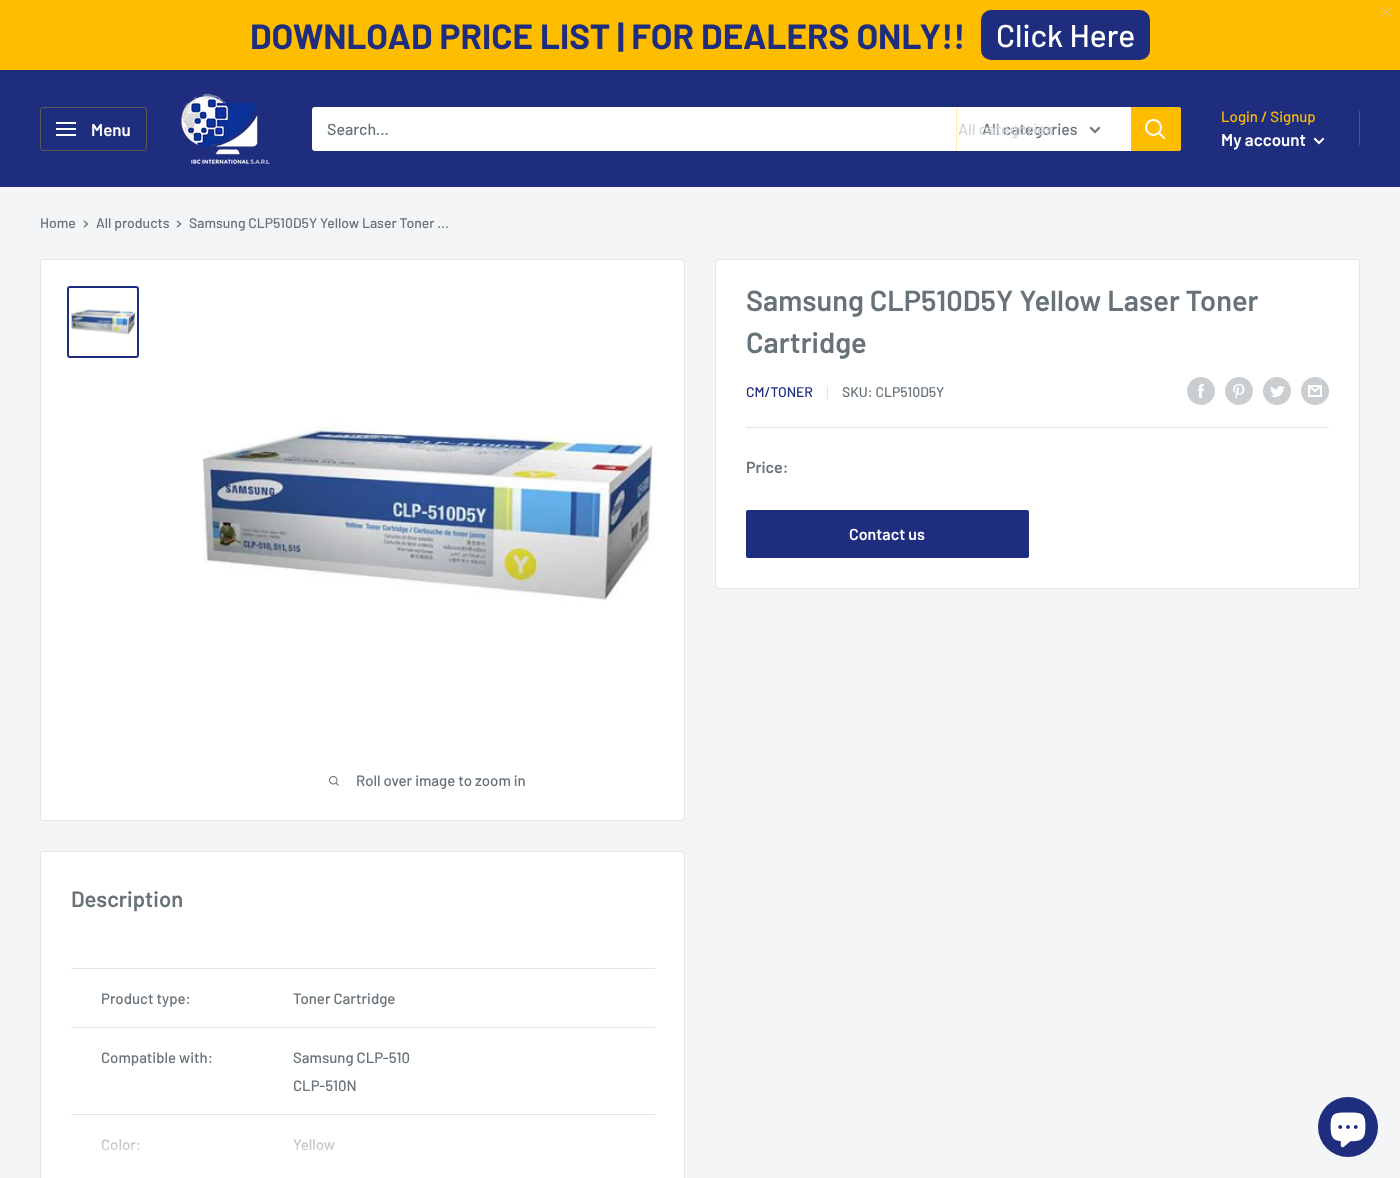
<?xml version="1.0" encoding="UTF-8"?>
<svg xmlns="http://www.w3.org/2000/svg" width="1400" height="1178">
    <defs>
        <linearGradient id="g1" gradientUnits="userSpaceOnUse" x1="363" y1="1123" x2="363" y2="1173"><stop offset="0" stop-color="#FFFFFF" stop-opacity="0"/><stop offset="0.15" stop-color="#FFFFFF" stop-opacity="0.4"/><stop offset="1" stop-color="#FFFFFF"/></linearGradient>
    </defs>
    <rect width="100%" height="100%" fill="#F3F5F6"/>
    <rect x="0" y="0" width="1400" height="70" fill="#FFBD00"/>
    <path d="M 1381.5 7 H 1382 L 1391.5 16.5 V 17 H 1391 L 1381.5 7.5 Z" fill="#D6C9A3"/>
    <path d="M 1391.5 7 V 7.5 L 1382 17 H 1381.5 V 16.5 L 1391 7 Z" fill="#D6C9A3"/>
    <text x="250" y="49" font-family="Barlow" font-size="35" font-weight="700" fill="#1E2D7D">DOWNLOAD PRICE LIST | FOR DEALERS ONLY!!</text>
    <rect x="981" y="10" width="169" height="50" rx="10" fill="#1E2D7D"/>
    <text x="996" y="47" font-family="Barlow" font-size="31.5" font-weight="500" fill="#FFFFFF">Click Here</text>
    <rect x="0" y="70" width="1400" height="117" fill="#1E2D7D"/>
    <rect x="40.5" y="107.5" width="106" height="43" rx="2.5" fill="none" stroke="#625858"/>
    <image x="56" y="122" width="20" height="14" href="img_01.png"/>
    <text x="91" y="136" font-family="Barlow" font-size="17" font-weight="600" fill="#FFFFFF">Menu</text>
    <image x="181" y="93" width="89" height="71" href="img_02.png"/>
    <rect x="312" y="107" width="869" height="44" rx="3" fill="#FFFFFF"/>
    <text x="327" y="135" font-family="Barlow" font-size="16" font-weight="500" fill="#677279">Search...</text>
    <rect x="956" y="107" width="1" height="44" fill="#FFEBB3"/>
    <text x="982" y="135" font-family="Barlow" font-size="16" font-weight="500" fill="#677279">All categories</text>
    <text x="958" y="135" font-family="Barlow" font-size="16" font-weight="500" fill="#D3D6D8">All categories</text>
    <path d="M 1099 128 L 1095 132 L 1091 128" fill="none" stroke="#677279" stroke-width="2" stroke-linecap="square"/>
    <path d="M 1131 107 H 1178 C 1179.5 107 1181 108.5 1181 110 V 148 C 1181 149.5 1179.5 151 1178 151 H 1131 Z" fill="#FFBD00"/>
    <path d="M 1164 138 L 1159 133" fill="none" stroke="#FFFFFF" stroke-width="2" stroke-linecap="square"/>
    <circle cx="1153.5" cy="127.5" r="7.5" fill="none" stroke="#FFFFFF" stroke-width="2"/>
    <text x="1221" y="122" font-family="Barlow" font-size="15" font-weight="500" fill="#FFBD00">Login / Signup</text>
    <rect x="1359" y="111" width="1" height="34" fill="#625858"/>
    <text x="1221" y="146" font-family="Barlow" font-size="17" font-weight="600" fill="#FFFFFF">My account</text>
    <path d="M 1323 139 L 1319 143 L 1315 139" fill="none" stroke="#FFFFFF" stroke-width="2" stroke-linecap="square"/>
    <text x="40" y="228" font-family="Barlow" font-size="14" font-weight="500" fill="#677279">Home</text>
    <path d="M 84.5 221.5 L 87.5 224 L 84.5 226.5" fill="none" stroke="#677279" stroke-width="1.3" stroke-linecap="square"/>
    <text x="96" y="228" font-family="Barlow" font-size="14" font-weight="500" fill="#677279">All products</text>
    <path d="M 177.5 221.5 L 180.5 224 L 177.5 226.5" fill="none" stroke="#677279" stroke-width="1.3" stroke-linecap="square"/>
    <text x="189" y="228" font-family="Barlow" font-size="14" font-weight="500" fill="#677279">Samsung CLP510D5Y Yellow Laser Toner ...</text>
    <rect x="715.5" y="259.5" width="644" height="329" rx="2.5" fill="#FFFFFF" stroke="#E1E3E4"/>
    <text font-family="Barlow" font-size="29" font-weight="600" fill="#677279">
        <tspan x="746" y="311">Samsung CLP510D5Y Yellow Laser Toner</tspan>
        <tspan x="746" y="353">Cartridge</tspan>
    </text>
    <text x="746" y="397" font-family="Barlow" font-size="14" font-weight="500" fill="#1E2D7D">CM/TONER</text>
    <rect x="827" y="386" width="1" height="13" fill="#E1E3E4"/>
    <text x="842" y="397" font-family="Barlow" font-size="14" font-weight="500" fill="#677279">SKU: CLP510D5Y</text>
    <image x="1187" y="377" width="28" height="28" href="img_03.png"/>
    <image x="1225" y="377" width="28" height="28" href="img_04.png"/>
    <image x="1263" y="377" width="28" height="28" href="img_05.png"/>
    <image x="1301" y="377" width="28" height="28" href="img_06.png"/>
    <rect x="746" y="427" width="583" height="1" fill="#E1E3E4"/>
    <text x="746" y="473" font-family="Barlow" font-size="16" font-weight="600" fill="#677279">Price:</text>
    <rect x="746" y="510" width="283" height="48" rx="2" fill="#1E2D7D"/>
    <text x="849" y="540" font-family="Barlow" font-size="16" font-weight="600" fill="#FFFFFF">Contact us</text>
    <rect x="40.5" y="259.5" width="644" height="561" rx="2.5" fill="#FFFFFF" stroke="#E1E3E4"/>
    <rect x="68" y="287" width="70" height="70" rx="2" fill="none" stroke="#1E2D7D" stroke-width="2"/>
    <image x="71" y="309" width="64" height="26" href="img_07.png"/>
    <image x="203" y="420" width="450" height="181" href="img_08.png"/>
    <image x="329" y="776" width="10" height="10" href="img_09.png"/>
    <text x="356" y="786" font-family="Barlow" font-size="15" font-weight="500" fill="#677279">Roll over image to zoom in</text>
    <rect x="40.5" y="851.5" width="644" height="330" rx="2.5" fill="#FFFFFF" stroke="#E1E3E4"/>
    <text x="71" y="907" font-family="Barlow" font-size="22" font-weight="600" fill="#677279">Description</text>
    <rect x="71" y="968" width="584" height="1" fill="#E1E3E4"/>
    <text x="101" y="1004" font-family="Barlow" font-size="15" font-weight="500" fill="#677279">Product type:</text>
    <text x="293" y="1004" font-family="Barlow" font-size="15" font-weight="500" fill="#677279">Toner Cartridge</text>
    <rect x="71" y="1027" width="584" height="1" fill="#E1E3E4"/>
    <text x="101" y="1063" font-family="Barlow" font-size="15" font-weight="500" fill="#677279">Compatible with:</text>
    <text font-family="Barlow" font-size="15" font-weight="500" fill="#677279">
        <tspan x="293" y="1063">Samsung CLP-510</tspan>
        <tspan x="293" y="1091">CLP-510N</tspan>
    </text>
    <rect x="71" y="1114" width="584" height="1" fill="#E1E3E4"/>
    <text x="101" y="1150" font-family="Barlow" font-size="15" font-weight="500" fill="#677279">Color:</text>
    <text x="293" y="1150" font-family="Barlow" font-size="15" font-weight="500" fill="#677279">Yellow</text>
    <rect x="101" y="1139" width="234" height="12" fill="url(#g1)"/>
    <circle cx="1348" cy="1127" r="30" fill="#1E2D7D"/>
    <image x="1330" y="1112" width="36" height="36" href="img_10.png"/>
</svg>
